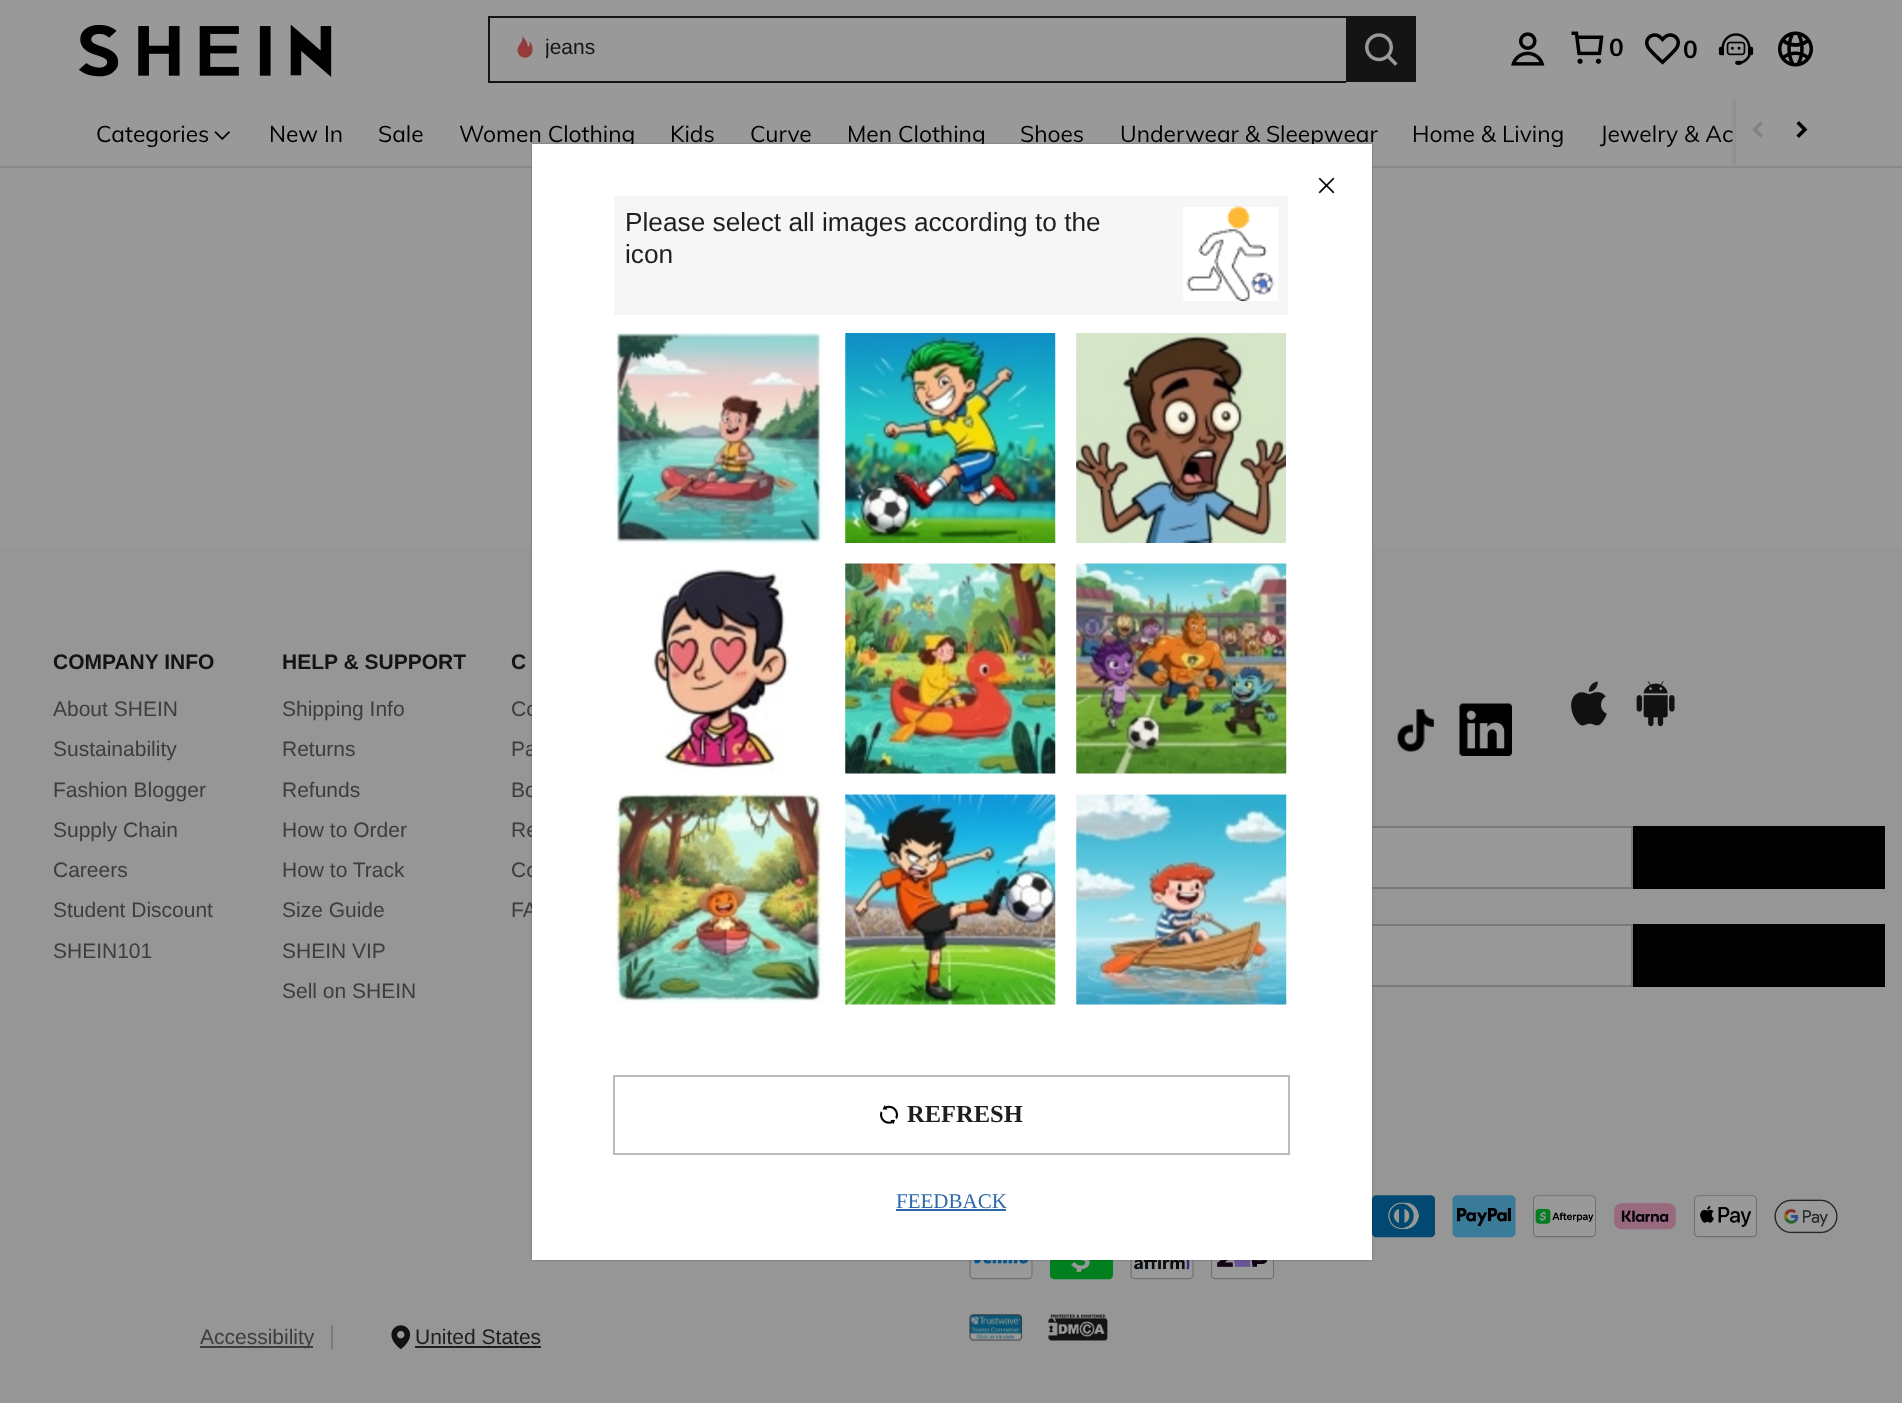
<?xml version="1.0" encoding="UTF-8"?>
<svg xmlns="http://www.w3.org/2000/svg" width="1902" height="1403">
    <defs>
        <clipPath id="clip1"><rect x="546" y="37" width="49" height="24"/></clipPath>
        <clipPath id="clip2"><rect x="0" y="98" width="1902" height="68"/></clipPath>
        <filter id="blur1" x="-50%" y="-200%" width="200%" height="500%"><feGaussianBlur stdDeviation="2.5"/></filter>
        <filter id="blur2" x="-50%" y="-200%" width="200%" height="500%"><feGaussianBlur stdDeviation="1"/></filter>
    </defs>
    <rect width="100%" height="100%" fill="#999999"/>
    <image x="79" y="25" width="253" height="52" href="img_01.png"/>
    <rect x="488" y="16" width="858" height="2" fill="#141414"/>
    <rect x="488" y="81" width="858" height="2" fill="#141414"/>
    <rect x="488" y="16" width="2" height="66" fill="#141414"/>
    <image x="517" y="36" width="16" height="22" href="img_02.png"/>
    <g clip-path="url(#clip1)">
        <text x="545" y="54" font-family="Liberation Sans" font-size="21" fill="#141414">jeans</text>
    </g>
    <rect x="1346" y="16" width="70" height="66" fill="#141414"/>
    <image x="1365" y="33" width="33" height="33" href="img_03.png"/>
    <image x="1511" y="32" width="34" height="34" href="img_04.png"/>
    <image x="1571" y="31" width="33" height="33" href="img_05.png"/>
    <text x="1609" y="56" font-family="Muli" font-size="24.5" font-weight="700" fill="#000000">0</text>
    <image x="1645" y="33" width="35" height="32" href="img_06.png"/>
    <text x="1683" y="58" font-family="Muli" font-size="24.5" font-weight="700" fill="#000000">0</text>
    <image x="1718" y="33" width="36" height="32" href="img_07.png"/>
    <image x="1778" y="31" width="35" height="36" href="img_08.png"/>
    <rect x="0" y="166" width="1902" height="2" fill="#898989"/>
    <text x="96" y="142" font-family="Muli" font-size="22.75" fill="#000000">Categories</text>
    <image x="214" y="131" width="16" height="9" href="img_09.png"/>
    <text x="269" y="142" font-family="Muli" font-size="22.75" fill="#000000">New In</text>
    <text x="378" y="142" font-family="Muli" font-size="22.75" fill="#000000">Sale</text>
    <text x="459" y="142" font-family="Muli" font-size="22.75" fill="#000000">Women Clothing</text>
    <text x="670" y="142" font-family="Muli" font-size="22.75" fill="#000000">Kids</text>
    <text x="750" y="142" font-family="Muli" font-size="22.75" fill="#000000">Curve</text>
    <text x="847" y="142" font-family="Muli" font-size="22.75" fill="#000000">Men Clothing</text>
    <text x="1020" y="142" font-family="Muli" font-size="22.75" fill="#000000">Shoes</text>
    <text x="1120" y="142" font-family="Muli" font-size="22.75" fill="#000000">Underwear &amp; Sleepwear</text>
    <text x="1412" y="142" font-family="Muli" font-size="22.75" fill="#000000">Home &amp; Living</text>
    <text x="1600" y="142" font-family="Muli" font-size="22.75" fill="#000000">Jewelry &amp; Ac</text>
    <g clip-path="url(#clip2)">
        <rect x="1733" y="98" width="87" height="68" fill="#000000" fill-opacity="0.08" filter="url(#blur1)"/>
    </g>
    <rect x="1736" y="98" width="86" height="68" fill="#999999"/>
    <image x="1752" y="121" width="11" height="17" href="img_10.png"/>
    <image x="1796" y="121" width="12" height="17" href="img_11.png"/>
    <rect x="0" y="546" width="1902" height="857" fill="#969696"/>
    <text x="53" y="669" font-family="Liberation Sans" font-size="21" font-weight="700" fill="#141414">COMPANY INFO</text>
    <text font-family="Liberation Sans" font-size="21" fill="#3D3D3D">
        <tspan x="53" y="716">About SHEIN</tspan>
        <tspan x="53" y="756">Sustainability</tspan>
        <tspan x="53" y="797">Fashion Blogger</tspan>
        <tspan x="53" y="837">Supply Chain</tspan>
        <tspan x="53" y="877">Careers</tspan>
        <tspan x="53" y="917">Student Discount</tspan>
        <tspan x="53" y="958">SHEIN101</tspan>
    </text>
    <text x="282" y="669" font-family="Liberation Sans" font-size="21" font-weight="700" fill="#141414">HELP &amp; SUPPORT</text>
    <text font-family="Liberation Sans" font-size="21" fill="#3D3D3D">
        <tspan x="282" y="716">Shipping Info</tspan>
        <tspan x="282" y="756">Returns</tspan>
        <tspan x="282" y="797">Refunds</tspan>
        <tspan x="282" y="837">How to Order</tspan>
        <tspan x="282" y="877">How to Track</tspan>
        <tspan x="282" y="917">Size Guide</tspan>
        <tspan x="282" y="958">SHEIN VIP</tspan>
        <tspan x="282" y="998">Sell on SHEIN</tspan>
    </text>
    <text x="511" y="669" font-family="Liberation Sans" font-size="21" font-weight="700" fill="#141414">C</text>
    <text font-family="Liberation Sans" font-size="21" fill="#3D3D3D">
        <tspan x="511" y="716">Co</tspan>
        <tspan x="511" y="756">Pa</tspan>
        <tspan x="511" y="797">Bo</tspan>
        <tspan x="511" y="837">Re</tspan>
        <tspan x="511" y="877">Co</tspan>
        <tspan x="511" y="917">FA</tspan>
    </text>
    <image x="1397" y="709" width="37" height="43" href="img_12.png"/>
    <image x="1459" y="703" width="53" height="53" href="img_13.png"/>
    <image x="1571" y="681" width="36" height="45" href="img_14.png"/>
    <image x="1636" y="681" width="39" height="46" href="img_15.png"/>
    <rect x="1372" y="828" width="259" height="59" fill="#999999"/>
    <rect x="971" y="827" width="661" height="61" fill="none" stroke="#7A7A7A" stroke-width="2"/>
    <rect x="1633" y="826" width="252" height="63" fill="#000000"/>
    <rect x="1372" y="926" width="259" height="59" fill="#999999"/>
    <rect x="1111" y="925" width="521" height="61" fill="none" stroke="#7A7A7A" stroke-width="2"/>
    <rect x="1633" y="924" width="252" height="63" fill="#000000"/>
    <image x="1372" y="1195" width="63" height="43" href="img_16.png"/>
    <image x="1452" y="1195" width="64" height="43" href="img_17.png"/>
    <image x="1533" y="1195" width="63" height="43" href="img_18.png"/>
    <image x="1614" y="1203" width="62" height="27" href="img_19.png"/>
    <image x="1694" y="1195" width="63" height="43" href="img_20.png"/>
    <image x="1774" y="1199" width="64" height="35" href="img_21.png"/>
    <image x="969" y="1260" width="64" height="20" href="img_22.png"/>
    <image x="1050" y="1260" width="63" height="20" href="img_23.png"/>
    <image x="1130" y="1260" width="64" height="20" href="img_24.png"/>
    <image x="1211" y="1260" width="63" height="20" href="img_25.png"/>
    <rect x="331" y="1325" width="2" height="24" fill="#7A7A7A"/>
    <rect x="200" y="1346" width="113" height="2" fill="#3D3D3D"/>
    <text x="200" y="1344" font-family="Liberation Sans" font-size="21" fill="#3D3D3D">Accessibility</text>
    <image x="391" y="1325" width="20" height="25" href="img_26.png"/>
    <text x="415" y="1344" font-family="Liberation Sans" font-size="21" fill="#1E1E1E">United States</text>
    <rect x="415" y="1346" width="126" height="2" fill="#1E1E1E"/>
    <image x="969" y="1314" width="53" height="27" href="img_27.png"/>
    <image x="1048" y="1314" width="60" height="27" href="img_28.png"/>
    <rect x="532" y="144" width="840" height="1116" fill="#000000" fill-opacity="0.3" filter="url(#blur2)"/>
    <rect x="532" y="144" width="840" height="1116" fill="#FFFFFF"/>
    <image x="1318" y="177" width="17" height="17" href="img_29.png"/>
    <rect x="614" y="196" width="674" height="119" fill="#F6F6F6"/>
    <text font-family="Liberation Sans" font-size="26.25" fill="#1E1E1E">
        <tspan x="625" y="231">Please select all images according to the</tspan>
        <tspan x="625" y="263">icon</tspan>
    </text>
    <rect x="1183" y="207" width="95" height="94" fill="#FFFFFF"/>
    <image x="1186" y="206" width="89" height="95" href="img_30.png"/>
    <image x="614" y="333" width="210" height="210" href="img_31.png"/>
    <image x="845" y="333" width="211" height="210" href="img_32.png"/>
    <image x="1076" y="333" width="210" height="210" href="img_33.png"/>
    <image x="653" y="569" width="137" height="204" href="img_34.png"/>
    <image x="845" y="563" width="211" height="211" href="img_35.png"/>
    <image x="1076" y="563" width="211" height="211" href="img_36.png"/>
    <image x="614" y="794" width="210" height="210" href="img_37.png"/>
    <image x="845" y="794" width="211" height="211" href="img_38.png"/>
    <image x="1076" y="794" width="211" height="211" href="img_39.png"/>
    <rect x="614" y="1076" width="675" height="78" fill="none" stroke="#BBBBBB" stroke-width="2"/>
    <image x="880" y="1105" width="18" height="19" href="img_40.png"/>
    <text x="907" y="1122" font-family="Liberation Serif" font-size="24.5" font-weight="700" fill="#1E1E1E">REFRESH</text>
    <text x="896" y="1208" font-family="Liberation Serif" font-size="21" fill="#2D68A8">FEEDBACK</text>
    <rect x="896" y="1209" width="110" height="2" fill="#2D68A8"/>
</svg>
